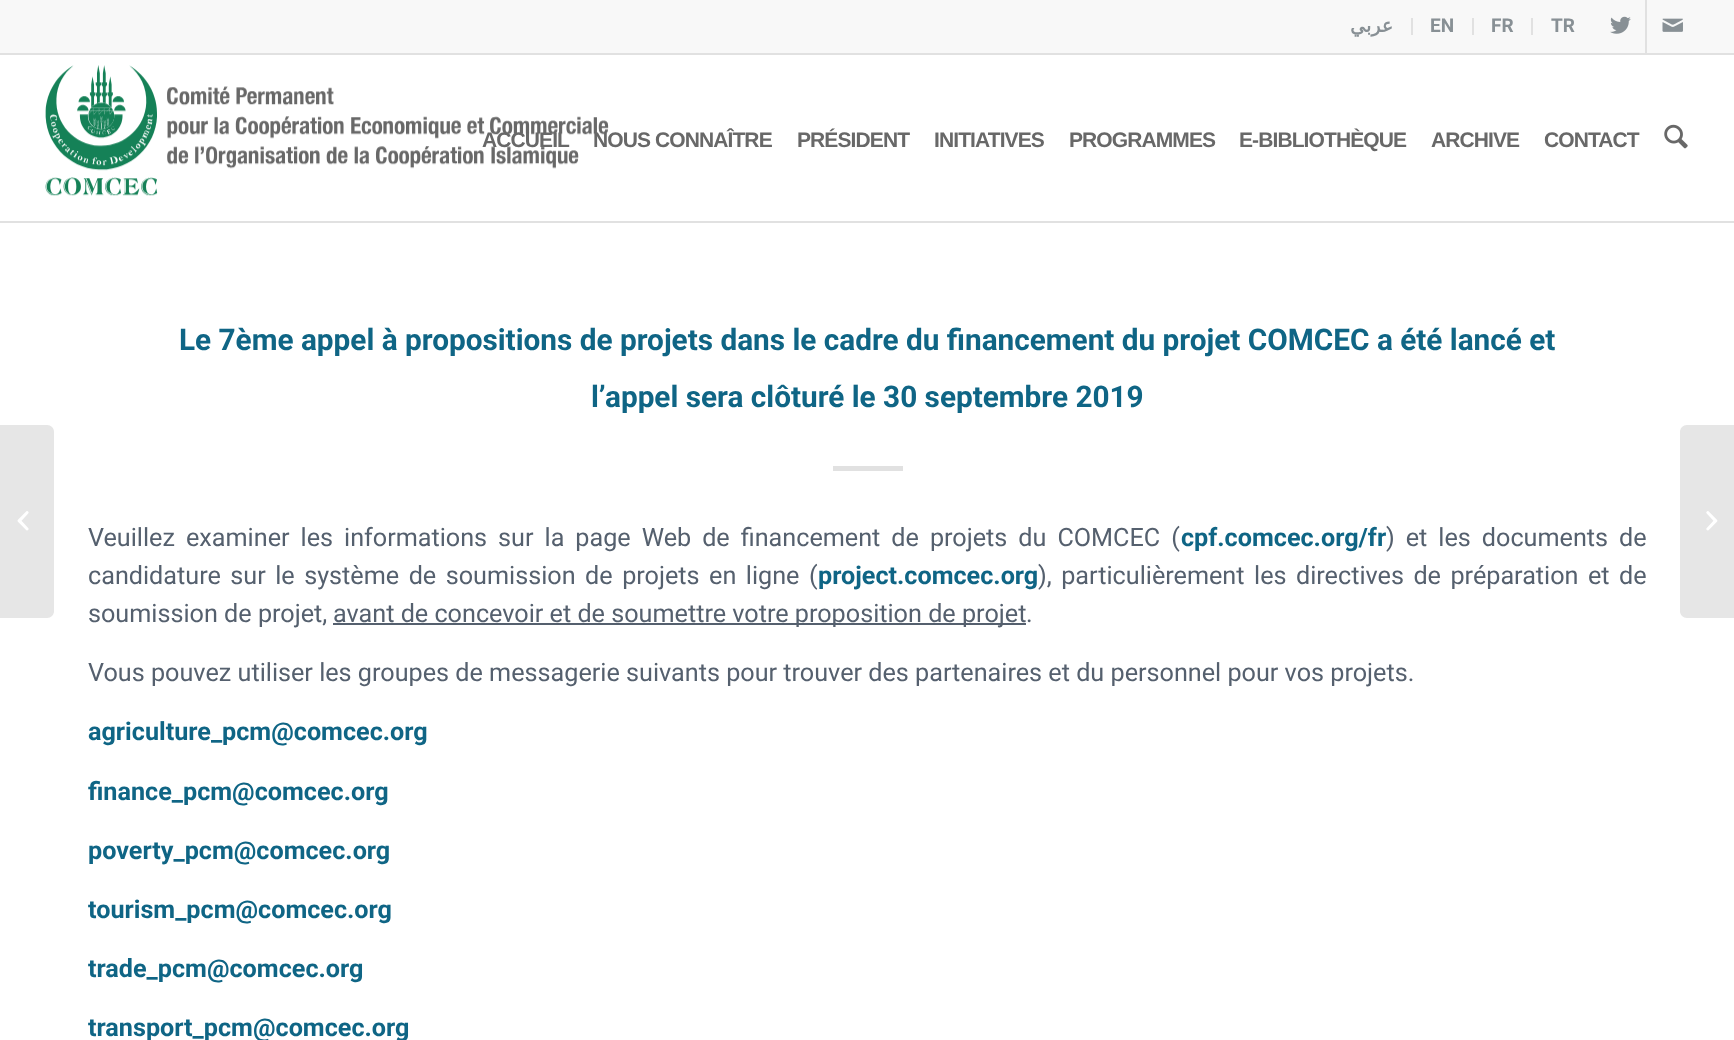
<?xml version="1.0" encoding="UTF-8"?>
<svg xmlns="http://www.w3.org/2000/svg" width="1734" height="1040">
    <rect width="100%" height="100%" fill="#FFFFFF"/>
    <rect x="0" y="0" width="1734" height="53" fill="#F8F8F8"/>
    <rect x="0" y="53" width="1734" height="2" fill="#E1E1E1"/>
    <rect x="1411" y="18" width="2" height="17" fill="#E1E1E1"/>
    <text x="1393" y="32" font-family="DejaVu Sans" font-size="19" font-weight="700" direction="rtl" fill="#889095">عربي</text>
    <rect x="1472" y="18" width="2" height="17" fill="#E1E1E1"/>
    <text x="1430" y="32" font-family="Roboto" font-size="19" font-weight="700" fill="#889095">EN</text>
    <rect x="1531" y="18" width="2" height="17" fill="#E1E1E1"/>
    <text x="1491" y="32" font-family="Roboto" font-size="19" font-weight="700" fill="#889095">FR</text>
    <text x="1551" y="32" font-family="Roboto" font-size="19" font-weight="700" fill="#889095">TR</text>
    <rect x="1645" y="0" width="2" height="53" fill="#E1E1E1"/>
    <image x="1610" y="16" width="21" height="18" href="img_01.png"/>
    <image x="1662" y="18" width="21" height="14" href="img_02.png"/>
    <rect x="0" y="221" width="1734" height="2" fill="#E1E1E1"/>
    <image x="45" y="65" width="564" height="131" href="img_03.png"/>
    <text x="482" y="147" font-family="Liberation Sans" font-size="21" font-weight="700" letter-spacing="-0.9" fill="#686868">ACCUEIL</text>
    <text x="593" y="147" font-family="Liberation Sans" font-size="21" font-weight="700" letter-spacing="-0.9" fill="#686868">NOUS CONNAÎTRE</text>
    <text x="797" y="147" font-family="Liberation Sans" font-size="21" font-weight="700" letter-spacing="-0.9" fill="#686868">PRÉSIDENT</text>
    <text x="934" y="147" font-family="Liberation Sans" font-size="21" font-weight="700" letter-spacing="-0.9" fill="#686868">INITIATIVES</text>
    <text x="1069" y="147" font-family="Liberation Sans" font-size="21" font-weight="700" letter-spacing="-0.9" fill="#686868">PROGRAMMES</text>
    <text x="1239" y="147" font-family="Liberation Sans" font-size="21" font-weight="700" letter-spacing="-0.9" fill="#686868">E-BIBLIOTHÈQUE</text>
    <text x="1431" y="147" font-family="Liberation Sans" font-size="21" font-weight="700" letter-spacing="-0.9" fill="#686868">ARCHIVE</text>
    <text x="1544" y="147" font-family="Liberation Sans" font-size="21" font-weight="700" letter-spacing="-0.9" fill="#686868">CONTACT</text>
    <image x="1664" y="124" width="24" height="25" href="img_04.png"/>
    <path d="M 0 425 H 47 C 51 425 54 428 54 432 V 611 C 54 615 51 618 47 618 H 0 Z" fill="#E6E6E6"/>
    <image x="17" y="511" width="12" height="20" href="img_05.png"/>
    <text x="179" y="350" font-family="Roboto" font-size="29.75" font-weight="700" fill="#0F6585">Le 7ème appel à propositions de projets dans le cadre du financement du projet COMCEC a été lancé et</text>
    <text x="591" y="407" font-family="Roboto" font-size="29.75" font-weight="700" fill="#0F6585">l’appel sera clôturé le 30 septembre 2019</text>
    <rect x="833" y="466" width="70" height="5" fill="#E1E1E1"/>
    <text x="88" y="546" word-spacing="4.75" font-family="Roboto" font-size="25.2" fill="#55606E">Veuillez examiner les informations sur la page Web de financement de projets du COMCEC (</text>
    <text x="1181" y="546" font-family="Roboto" font-size="25.2" font-weight="700" fill="#0F6585">cpf.comcec.org/fr</text>
    <text x="1386" y="546" word-spacing="4.75" font-family="Roboto" font-size="25.2" fill="#55606E">) et les documents de</text>
    <text x="88" y="584" word-spacing="3.25" font-family="Roboto" font-size="25.2" fill="#55606E">candidature sur le système de soumission de projets en ligne (</text>
    <text x="818" y="584" font-family="Roboto" font-size="25.2" font-weight="700" fill="#0F6585">project.comcec.org</text>
    <text x="1038" y="584" word-spacing="3.25" font-family="Roboto" font-size="25.2" fill="#55606E">), particulièrement les directives de préparation et de</text>
    <text x="88" y="622" font-family="Roboto" font-size="25.2" fill="#55606E">soumission de projet,</text>
    <rect x="333" y="623" width="693" height="2" fill="#55606E"/>
    <text x="333" y="622" font-family="Roboto" font-size="25.2" fill="#55606E">avant de concevoir et de soumettre votre proposition de projet</text>
    <text x="1026" y="622" font-family="Roboto" font-size="25.2" fill="#55606E">.</text>
    <text x="88" y="681" font-family="Roboto" font-size="25.2" fill="#55606E">Vous pouvez utiliser les groupes de messagerie suivants pour trouver des partenaires et du personnel pour vos projets.</text>
    <text x="88" y="740" font-family="Roboto" font-size="25.2" font-weight="700" fill="#0F6585">agriculture_pcm@comcec.org</text>
    <text x="88" y="800" font-family="Roboto" font-size="25.2" font-weight="700" fill="#0F6585">finance_pcm@comcec.org</text>
    <text x="88" y="859" font-family="Roboto" font-size="25.2" font-weight="700" fill="#0F6585">poverty_pcm@comcec.org</text>
    <text x="88" y="918" font-family="Roboto" font-size="25.2" font-weight="700" fill="#0F6585">tourism_pcm@comcec.org</text>
    <text x="88" y="977" font-family="Roboto" font-size="25.2" font-weight="700" fill="#0F6585">trade_pcm@comcec.org</text>
    <text x="88" y="1036" font-family="Roboto" font-size="25.2" font-weight="700" fill="#0F6585">transport_pcm@comcec.org</text>
    <path d="M 1687 425 H 1734 V 618 H 1687 C 1683 618 1680 615 1680 611 V 432 C 1680 428 1683 425 1687 425 Z" fill="#E6E6E6"/>
    <image x="1706" y="511" width="12" height="20" href="img_06.png"/>
</svg>
